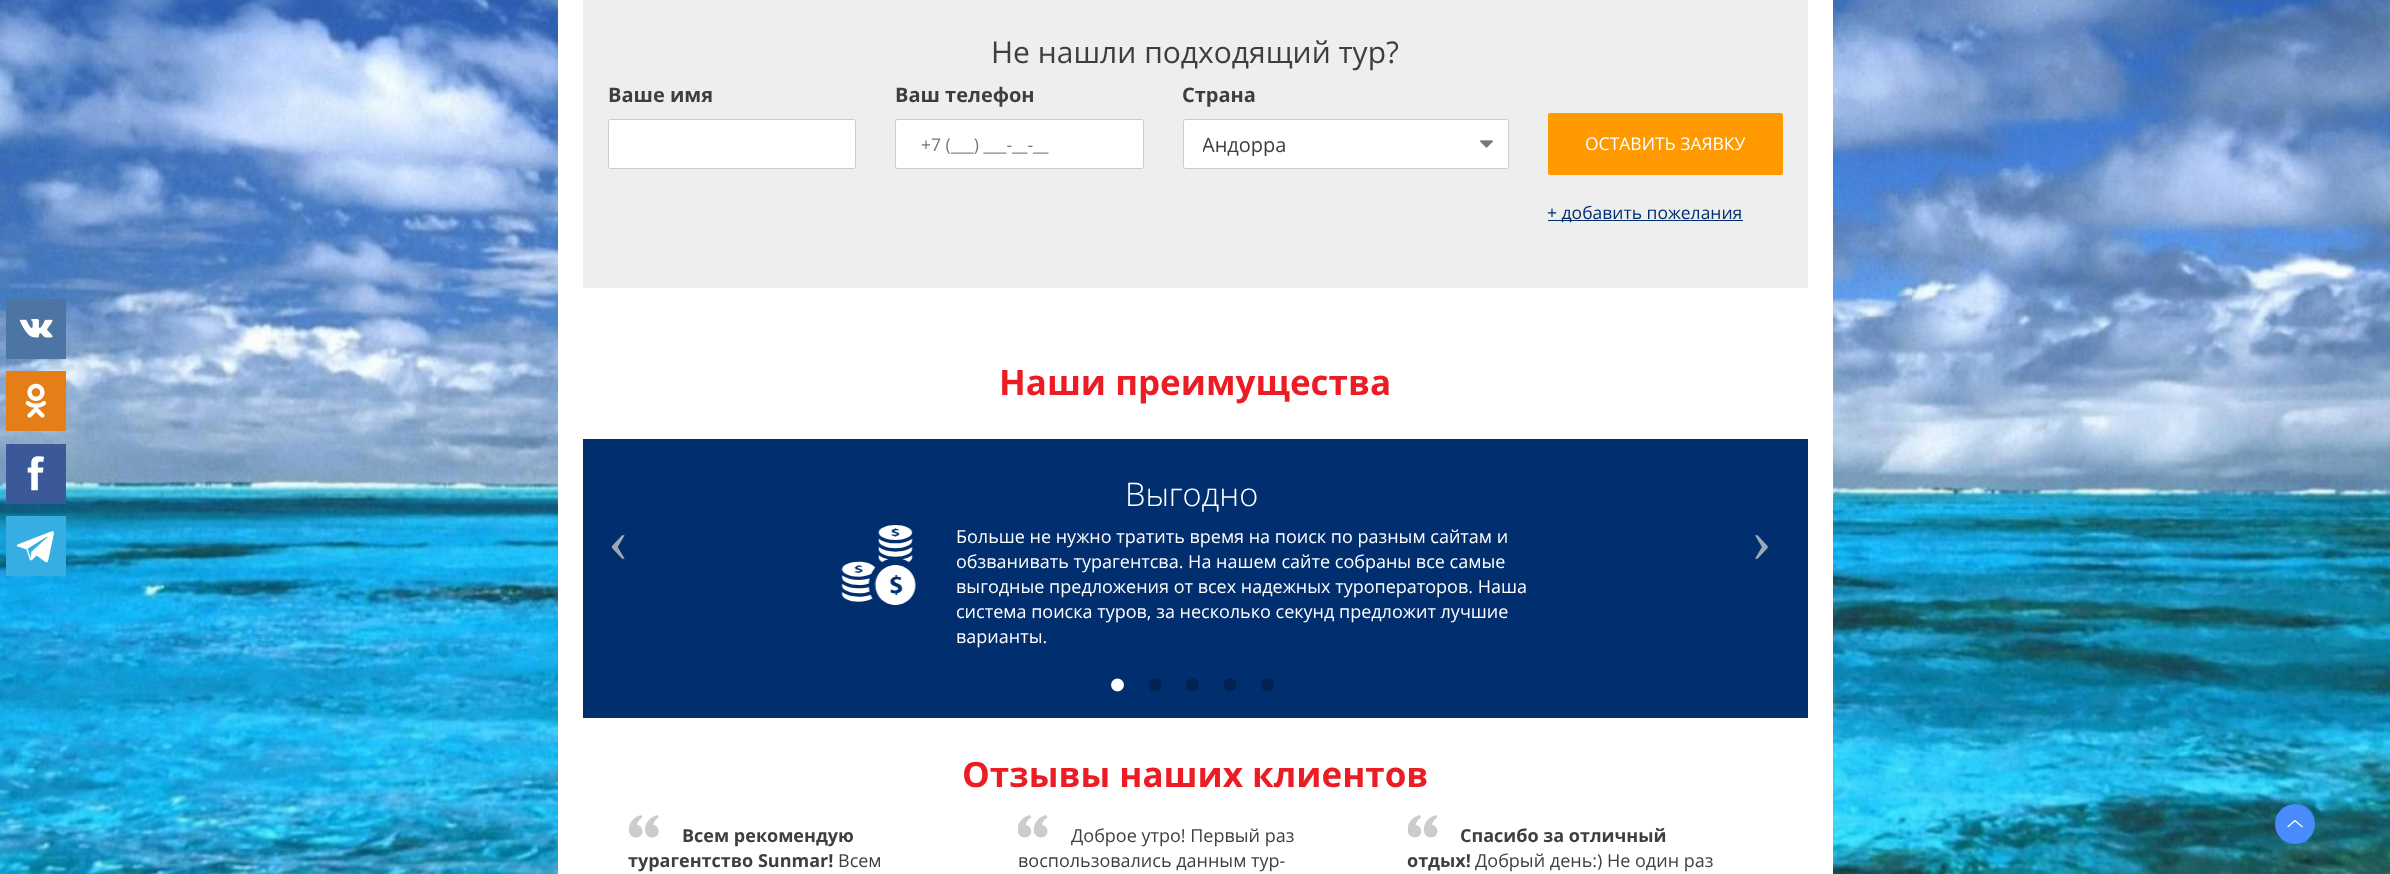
<?xml version="1.0" encoding="UTF-8"?>
<svg xmlns="http://www.w3.org/2000/svg" width="2390" height="874">
    <defs>
        <clipPath id="clip1"><rect x="1203" y="131" width="273" height="25"/></clipPath>
    </defs>
    <rect width="100%" height="100%" fill="#FFFFFF"/>
    <image x="0" y="0" width="2390" height="874" href="img_01.png"/>
    <rect x="558" y="0" width="1275" height="874" fill="#FFFFFF"/>
    <rect x="583" y="0" width="1225" height="288" fill="#EEEEEE"/>
    <text x="991" y="63" font-family="Open Sans" font-size="30" fill="#3E3E3E">Не нашли подходящий тур?</text>
    <text x="608" y="102" font-family="Open Sans" font-size="20" font-weight="700" fill="#3E3E3E">Ваше имя</text>
    <rect x="608.5" y="119.5" width="247" height="49" rx="2" fill="#FFFFFF" stroke="#CCCCCC"/>
    <text x="895" y="102" font-family="Open Sans" font-size="20" font-weight="700" fill="#3E3E3E">Ваш телефон</text>
    <rect x="895.5" y="119.5" width="248" height="49" rx="2" fill="#FFFFFF" stroke="#CCCCCC"/>
    <text x="921" y="151" font-family="Open Sans" font-size="17.5" fill="#757575">+7 (___) ___-__-__</text>
    <text x="1182" y="102" font-family="Open Sans" font-size="20" font-weight="700" fill="#3E3E3E">Страна</text>
    <rect x="1183" y="119" width="326" height="50" rx="2.5" fill="#FFFFFF"/>
    <image x="1480" y="140" width="13" height="8" href="img_02.png"/>
    <rect x="1183.5" y="119.5" width="325" height="49" rx="2" fill="none" stroke="#CCCCCC"/>
    <g clip-path="url(#clip1)">
        <text x="1202" y="152" font-family="Open Sans" font-size="20" fill="#3E3E3E">Андорра</text>
    </g>
    <rect x="1548" y="113" width="235" height="62" rx="2.5" fill="#FF9900"/>
    <text x="1585" y="150" font-family="Open Sans" font-size="17.5" fill="#FFFFFF">ОСТАВИТЬ ЗАЯВКУ</text>
    <rect x="1548" y="220" width="195" height="1" fill="#002E6E"/>
    <text x="1547" y="219" font-family="Open Sans" font-size="17.5" fill="#002E6E">+ добавить пожелания</text>
    <text x="999" y="395" font-family="Open Sans" font-size="35" font-weight="700" fill="#EC1C24">Наши преимущества</text>
    <rect x="583" y="439" width="1225" height="279" fill="#002E6E"/>
    <text x="608" y="561" font-family="Liberation Serif" font-size="62" fill="#9EA8B5">‹</text>
    <text x="1125" y="506" font-family="Open Sans" font-size="32.5" font-weight="300" fill="#FFFFFF">Выгодно</text>
    <image x="841" y="525" width="75" height="80" href="img_03.png"/>
    <text font-family="Open Sans" font-size="18" fill="#FFFFFF">
        <tspan x="956" y="543">Больше не нужно тратить время на поиск по разным сайтам и</tspan>
        <tspan x="956" y="568">обзванивать турагентсва. На нашем сайте собраны все самые</tspan>
        <tspan x="956" y="593">выгодные предложения от всех надежных туроператоров. Наша</tspan>
        <tspan x="956" y="618">система поиска туров, за несколько секунд предложит лучшие</tspan>
        <tspan x="956" y="643">варианты.</tspan>
    </text>
    <text x="1751" y="561" font-family="Liberation Serif" font-size="62" fill="#9EA8B5">›</text>
    <image x="1111" y="678" width="13" height="14" href="img_04.png"/>
    <image x="1148" y="678" width="14" height="14" href="img_05.png"/>
    <image x="1186" y="678" width="13" height="14" href="img_06.png"/>
    <image x="1223" y="678" width="14" height="14" href="img_05.png"/>
    <image x="1261" y="678" width="13" height="14" href="img_06.png"/>
    <text x="962" y="787" font-family="Open Sans" font-size="35" font-weight="700" fill="#EC1C24">Отзывы наших клиентов</text>
    <image x="629" y="815" width="30" height="23" href="img_07.png"/>
    <text x="682" y="842" font-family="Open Sans" font-size="18" font-weight="700" fill="#3E3E3E">Всем рекомендую</text>
    <text x="628" y="867" font-family="Open Sans" font-size="18" font-weight="700" fill="#3E3E3E">турагентство Sunmar!</text>
    <text x="838" y="867" font-family="Open Sans" font-size="18" fill="#3E3E3E">Всем</text>
    <image x="1018" y="815" width="30" height="23" href="img_08.png"/>
    <text x="1071" y="842" font-family="Open Sans" font-size="18" fill="#3E3E3E">Доброе утро! Первый раз</text>
    <text x="1018" y="867" font-family="Open Sans" font-size="18" fill="#3E3E3E">воспользовались данным тур-</text>
    <image x="1408" y="815" width="30" height="23" href="img_08.png"/>
    <text x="1460" y="842" font-family="Open Sans" font-size="18" font-weight="700" fill="#3E3E3E">Спасибо за отличный</text>
    <text x="1407" y="867" font-family="Open Sans" font-size="18" font-weight="700" fill="#3E3E3E">отдых!</text>
    <text x="1475" y="867" font-family="Open Sans" font-size="18" fill="#3E3E3E">Добрый день:) Не один раз</text>
    <rect x="6" y="299" width="60" height="60" fill="#4D75A3"/>
    <image x="19" y="318" width="34" height="20" href="img_09.png"/>
    <rect x="6" y="371" width="60" height="60" fill="#E67E17"/>
    <image x="25" y="383" width="22" height="35" href="img_10.png"/>
    <rect x="6" y="444" width="60" height="60" fill="#3B5998"/>
    <image x="27" y="456" width="18" height="35" href="img_11.png"/>
    <rect x="6" y="516" width="60" height="60" fill="#37AEE2"/>
    <image x="16" y="531" width="38" height="32" href="img_12.png"/>
    <circle cx="2295" cy="824" r="20" fill="#498BFA"/>
    <image x="2287" y="819" width="16" height="9" href="img_13.png"/>
</svg>
